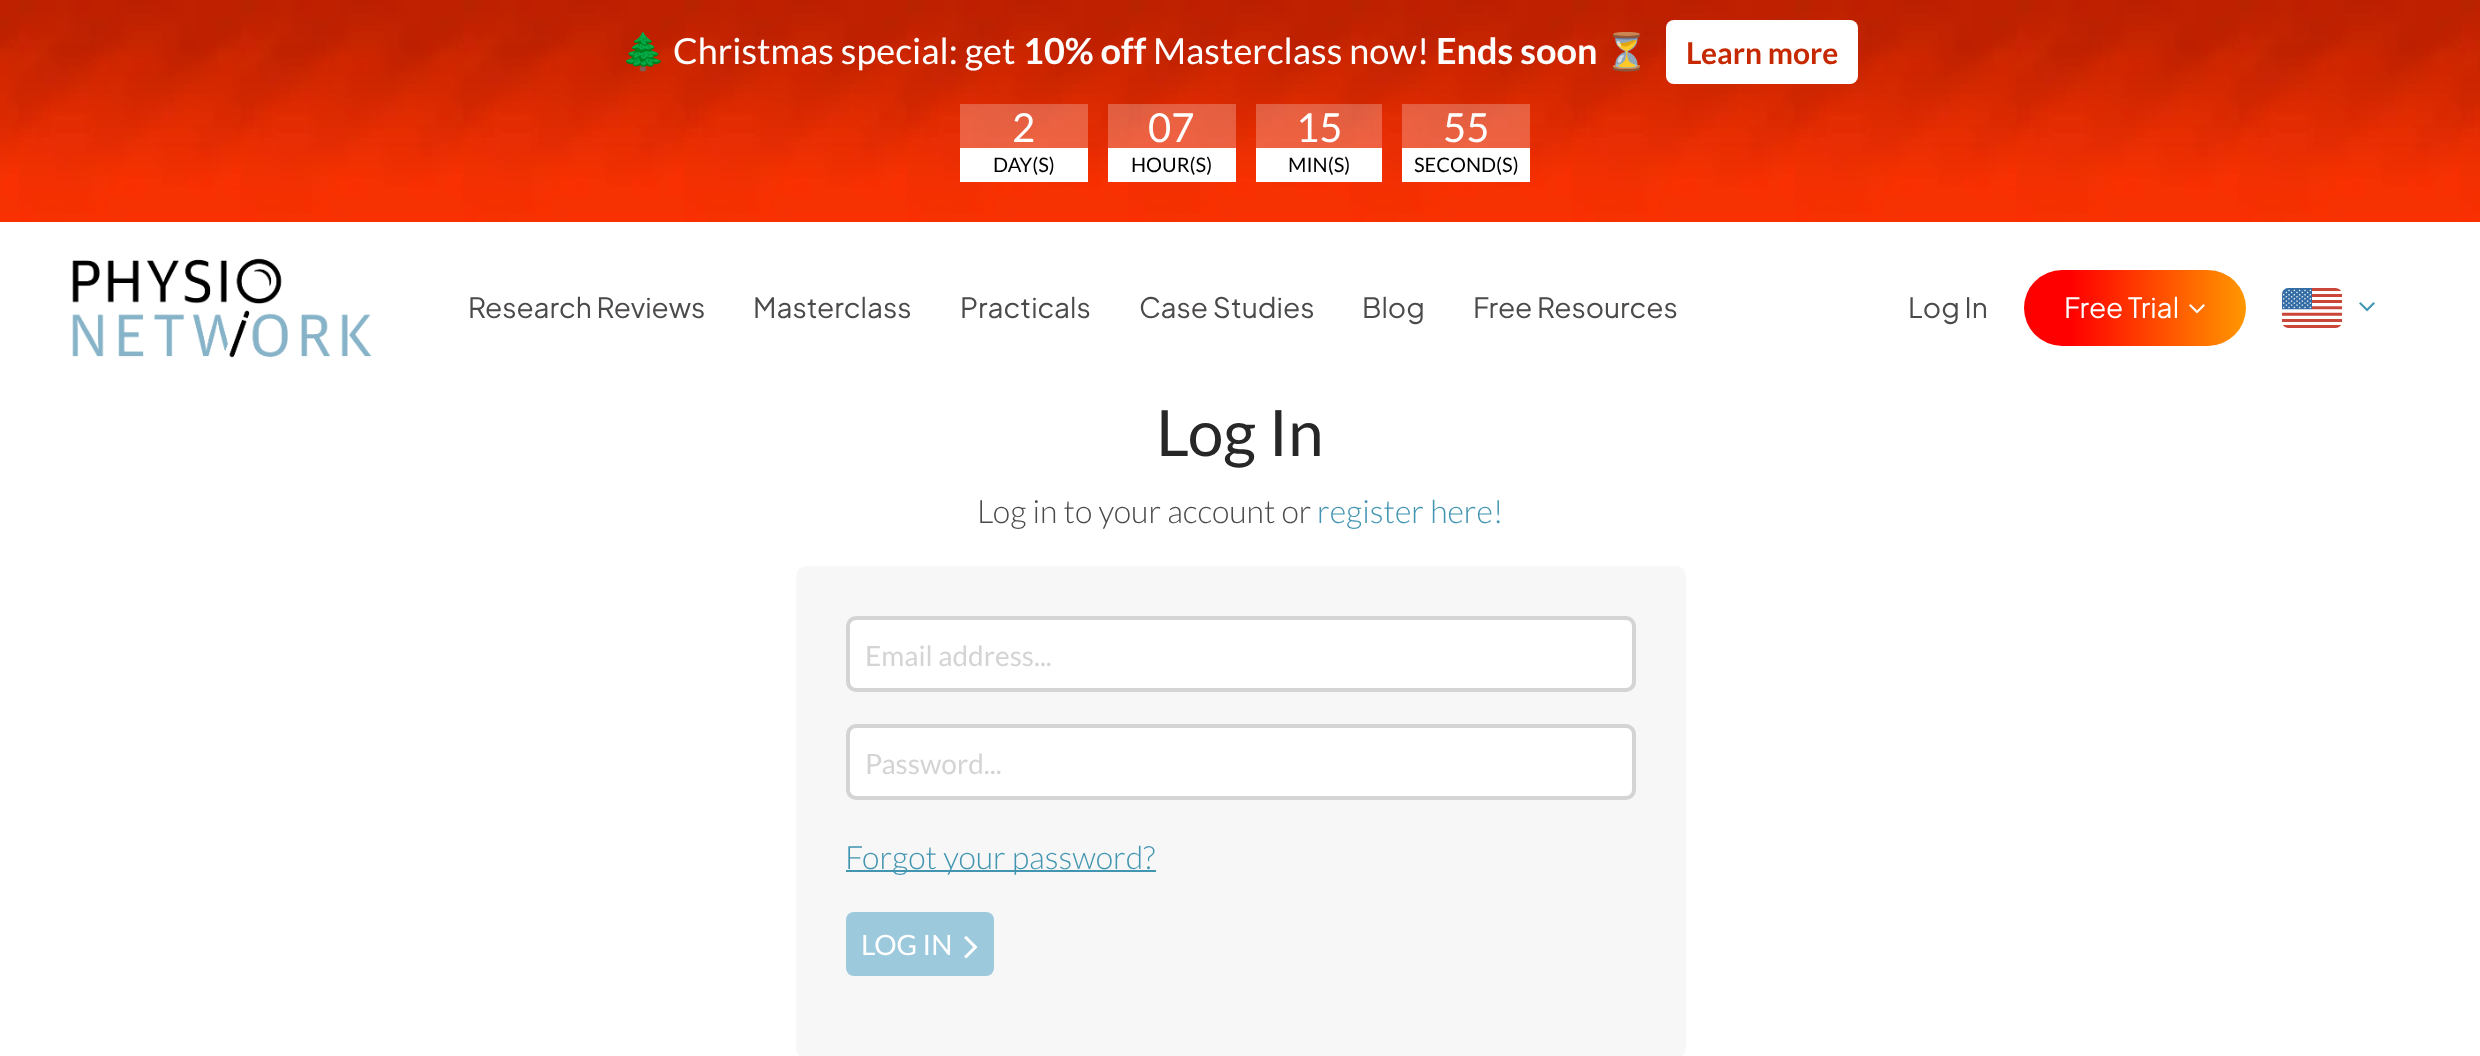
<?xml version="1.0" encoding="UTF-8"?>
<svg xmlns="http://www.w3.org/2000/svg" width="2480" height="1056">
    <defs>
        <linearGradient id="g1" gradientUnits="userSpaceOnUse" x1="2024" y1="308" x2="2246" y2="308"><stop offset="0.21" stop-color="#FF0000"/><stop offset="1" stop-color="#FF9800"/></linearGradient>
    </defs>
    <rect width="100%" height="100%" fill="#FFFFFF"/>
    <image x="0" y="0" width="2480" height="222" href="img_01.png"/>
    <text x="621" y="64" font-family="Noto Color Emoji" font-size="36" fill="#FFFFFF">🌲</text>
    <text x="673" y="64" font-family="Lato" font-size="36" fill="#FFFFFF">Christmas special: get</text>
    <text x="1023" y="64" font-family="Lato" font-size="36" font-weight="700" fill="#FFFFFF">10% off</text>
    <text x="1153" y="64" font-family="Lato" font-size="36" fill="#FFFFFF">Masterclass now!</text>
    <text x="1436" y="64" font-family="Lato" font-size="36" font-weight="700" fill="#FFFFFF">Ends soon</text>
    <text x="1604" y="64" font-family="Noto Color Emoji" font-size="36" fill="#FFFFFF">⏳</text>
    <rect x="1666" y="20" width="192" height="64" rx="8" fill="#FFFFFF"/>
    <text x="1686" y="64" font-family="Lato" font-size="30" font-weight="700" fill="#C62901">Learn more</text>
    <rect x="960" y="104" width="128" height="44" fill="#FFFFFF" fill-opacity="0.25"/>
    <text x="1012" y="142" font-family="Lato" font-size="40" fill="#FFFFFF">2</text>
    <rect x="960" y="148" width="128" height="34" fill="#FFFFFF"/>
    <text x="993" y="172" font-family="Lato" font-size="20" fill="#000000">DAY(S)</text>
    <rect x="1108" y="104" width="128" height="44" fill="#FFFFFF" fill-opacity="0.25"/>
    <text x="1148" y="142" font-family="Lato" font-size="40" fill="#FFFFFF">07</text>
    <rect x="1108" y="148" width="128" height="34" fill="#FFFFFF"/>
    <text x="1131" y="172" font-family="Lato" font-size="20" fill="#000000">HOUR(S)</text>
    <rect x="1256" y="104" width="126" height="44" fill="#FFFFFF" fill-opacity="0.25"/>
    <text x="1296" y="142" font-family="Lato" font-size="40" fill="#FFFFFF">15</text>
    <rect x="1256" y="148" width="126" height="34" fill="#FFFFFF"/>
    <text x="1288" y="172" font-family="Lato" font-size="20" fill="#000000">MIN(S)</text>
    <rect x="1402" y="104" width="128" height="44" fill="#FFFFFF" fill-opacity="0.25"/>
    <text x="1443" y="142" font-family="Lato" font-size="40" fill="#FFFFFF">55</text>
    <rect x="1402" y="148" width="128" height="34" fill="#FFFFFF"/>
    <text x="1414" y="172" font-family="Lato" font-size="20" fill="#000000">SECOND(S)</text>
    <image x="72" y="258" width="300" height="100" href="img_02.png"/>
    <text x="468" y="318" font-family="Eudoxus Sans" font-size="28" fill="#4C4949">Research Reviews</text>
    <text x="753" y="318" font-family="Eudoxus Sans" font-size="28" fill="#4C4949">Masterclass</text>
    <text x="960" y="318" font-family="Eudoxus Sans" font-size="28" fill="#4C4949">Practicals</text>
    <text x="1139" y="318" font-family="Eudoxus Sans" font-size="28" fill="#4C4949">Case Studies</text>
    <text x="1362" y="318" font-family="Eudoxus Sans" font-size="28" fill="#4C4949">Blog</text>
    <text x="1473" y="318" font-family="Eudoxus Sans" font-size="28" fill="#4C4949">Free Resources</text>
    <text x="1908" y="318" font-family="Eudoxus Sans" font-size="28" fill="#4C4949">Log In</text>
    <rect x="2024" y="270" width="222" height="76" rx="38" fill="url(#g1)"/>
    <text x="2064" y="318" font-family="Eudoxus Sans" font-size="28" fill="#FFFFFF">Free Trial</text>
    <image x="2189" y="304" width="16" height="10" href="img_03.png"/>
    <image x="2282" y="288" width="60" height="40" href="img_04.png"/>
    <image x="2359" y="302" width="16" height="10" href="img_05.png"/>
    <text x="1156" y="456" font-family="Lato" font-size="64" fill="#272727">Log In</text>
    <text x="977" y="523" font-family="Lato" font-size="32" font-weight="300" fill="#4C4949">Log in to your account or</text>
    <text x="1317" y="523" font-family="Lato" font-size="32" font-weight="300" fill="#4295B1">register here!</text>
    <rect x="796" y="566" width="890" height="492" rx="10" fill="#F7F7F7"/>
    <rect x="848" y="618" width="786" height="72" rx="8" fill="#FFFFFF" stroke="#D4D4D4" stroke-width="4"/>
    <text x="865" y="666" font-family="Lato" font-size="28" fill="#D4D4D4">Email address...</text>
    <rect x="848" y="726" width="786" height="72" rx="8" fill="#FFFFFF" stroke="#D4D4D4" stroke-width="4"/>
    <text x="865" y="774" font-family="Lato" font-size="28" fill="#D4D4D4">Password...</text>
    <rect x="846" y="870" width="310" height="2" fill="#4295B1"/>
    <text x="845" y="869" font-family="Lato" font-size="32" font-weight="300" fill="#4295B1">Forgot your password?</text>
    <rect x="846" y="912" width="148" height="64" rx="8" fill="#9CC9DC"/>
    <text x="861" y="955" font-family="Lato" font-size="28" fill="#FFFFFF">LOG IN</text>
    <image x="964" y="936" width="14" height="23" href="img_06.png"/>
</svg>
